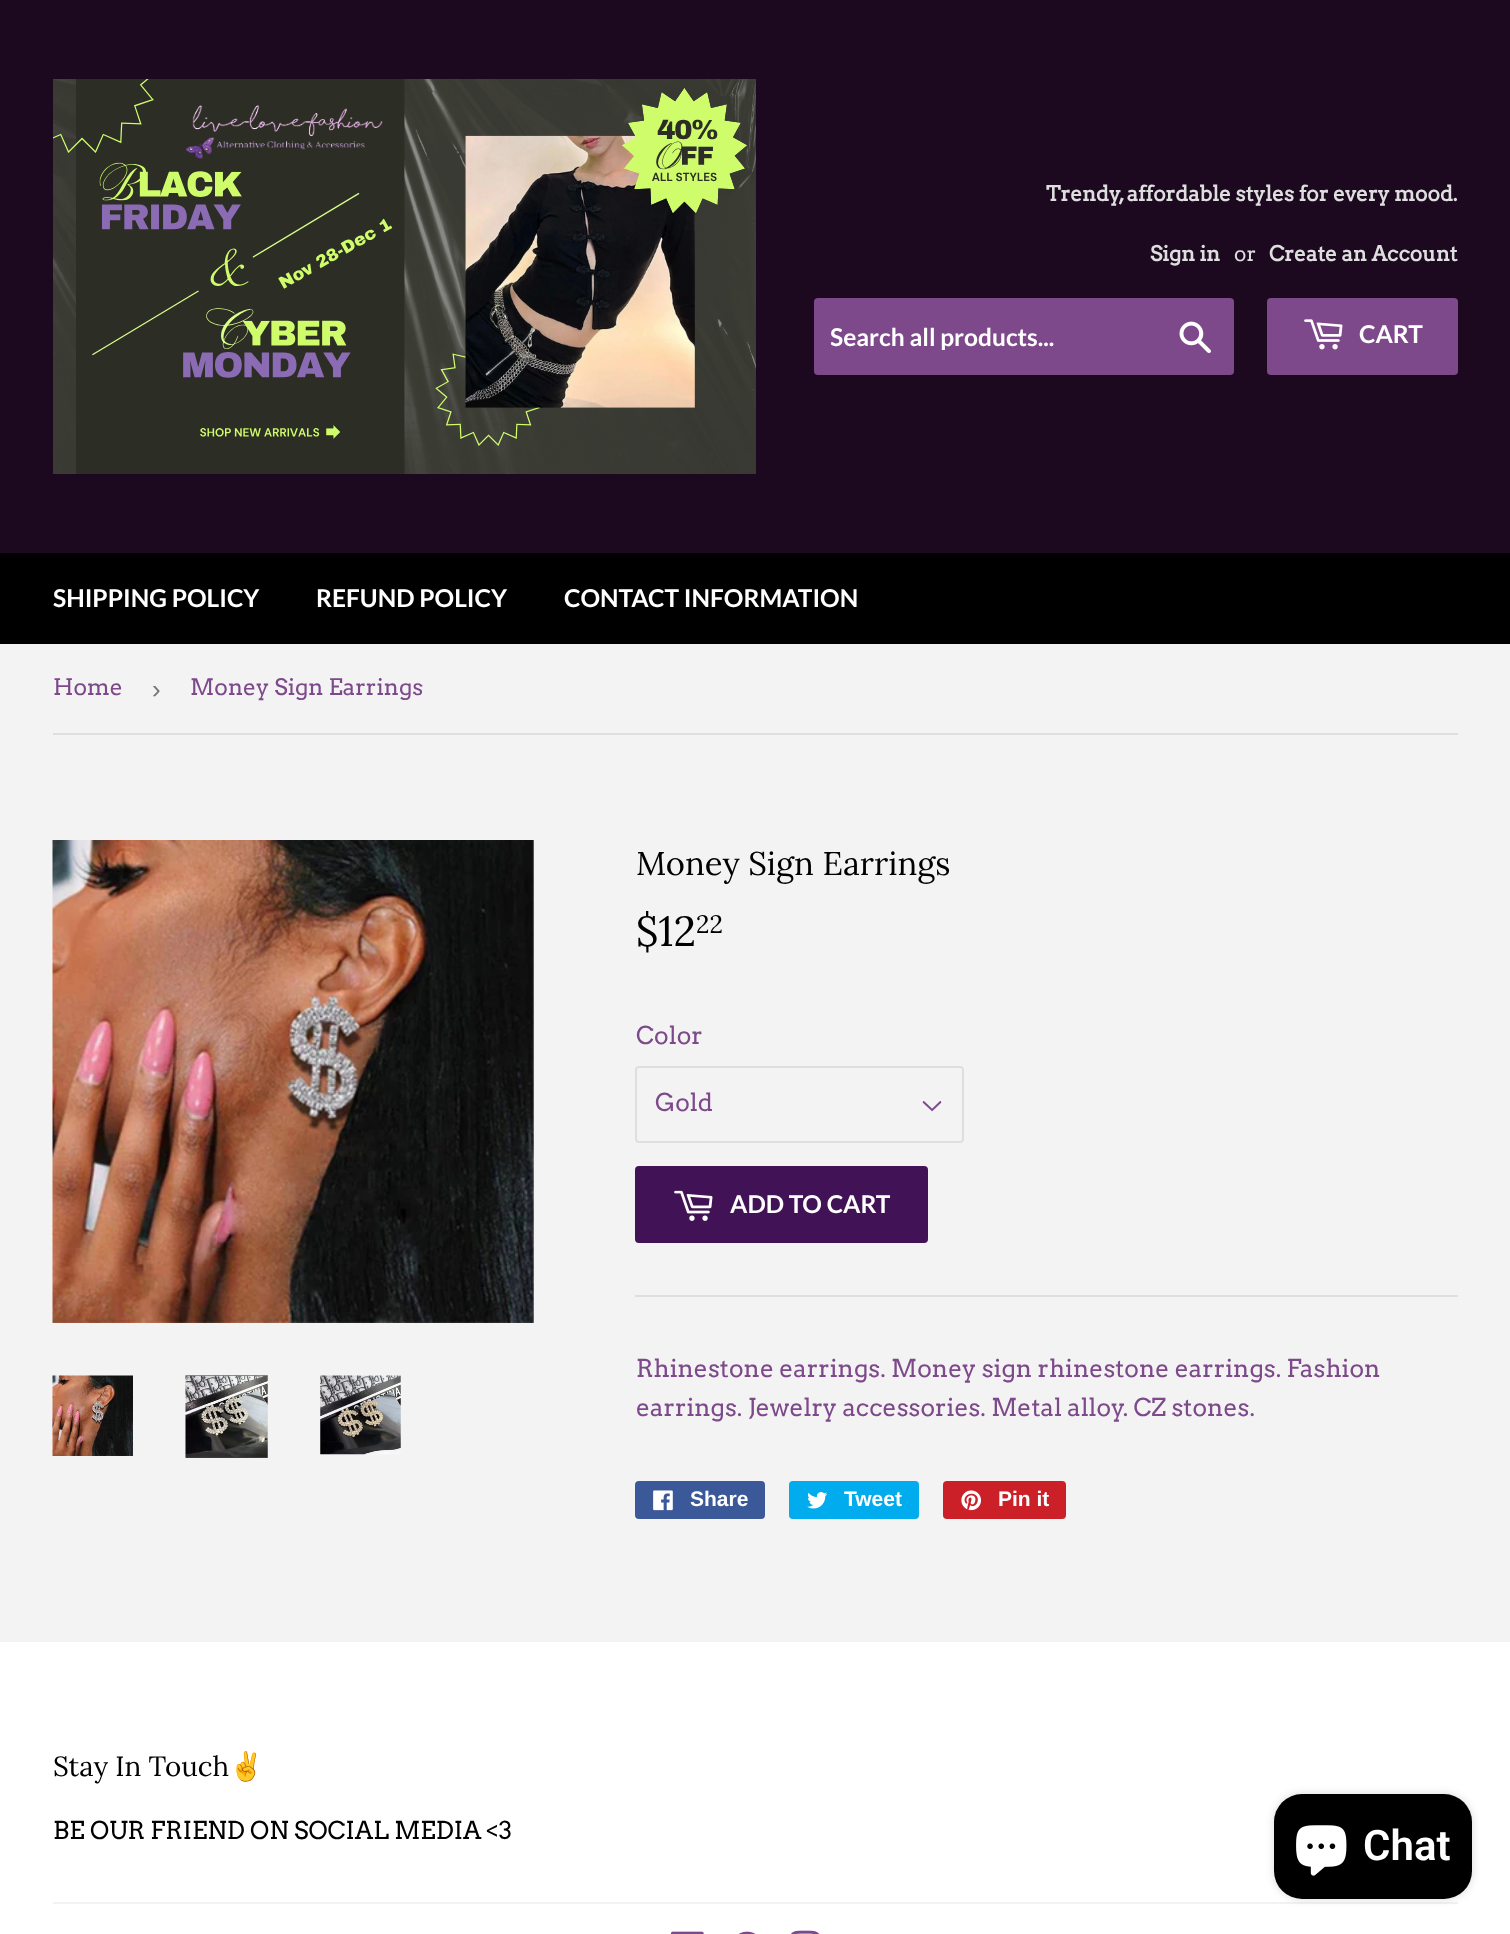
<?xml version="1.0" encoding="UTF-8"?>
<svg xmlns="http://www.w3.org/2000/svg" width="1510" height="1934">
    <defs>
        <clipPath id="clip1"><rect x="831" y="320" width="317" height="30"/></clipPath>
        <filter id="blur1" x="-50%" y="-200%" width="200%" height="500%"><feGaussianBlur stdDeviation="4.5"/></filter>
    </defs>
    <rect width="100%" height="100%" fill="#F3F3F3"/>
    <rect x="0" y="0" width="1510" height="553" fill="#1C0920"/>
    <image x="53" y="79" width="703" height="395" href="img_01.png"/>
    <text x="1046" y="201" font-family="Arvo" font-size="20.8" font-weight="700" fill="#DEDEDE">Trendy, affordable styles for every mood.</text>
    <text x="1150" y="261" font-family="Arvo" font-size="20.8" font-weight="700" fill="#DEDEDE">Sign in</text>
    <text x="1234" y="261" font-family="Arvo" font-size="20.8" fill="#DEDEDE">or</text>
    <text x="1269" y="261" font-family="Arvo" font-size="20.8" font-weight="700" fill="#DEDEDE">Create an Account</text>
    <rect x="814" y="298" width="420" height="77" rx="4" fill="#7D498B"/>
    <g clip-path="url(#clip1)">
        <text x="830" y="346" font-family="Lato" font-size="24.5" font-weight="700" fill="#FFFFFF">Search all products...</text>
    </g>
    <image x="1179" y="321" width="32" height="32" href="img_02.png"/>
    <rect x="1267" y="298" width="191" height="77" rx="4" fill="#7D498B"/>
    <image x="1304" y="319" width="39" height="31" href="img_03.png"/>
    <text x="1359" y="343" font-family="Lato" font-size="24.5" font-weight="700" fill="#FFFFFF">CART</text>
    <rect x="0" y="553" width="1510" height="91" fill="#000000"/>
    <text x="53" y="607" font-family="Lato" font-size="24.5" font-weight="700" fill="#FFFFFF">SHIPPING POLICY</text>
    <text x="316" y="607" font-family="Lato" font-size="24.5" font-weight="700" fill="#FFFFFF">REFUND POLICY</text>
    <text x="564" y="607" font-family="Lato" font-size="24.5" font-weight="700" fill="#FFFFFF">CONTACT INFORMATION</text>
    <rect x="53" y="733" width="1405" height="2" fill="#DEDEDE"/>
    <text x="53" y="695" font-family="Arvo" font-size="22.75" fill="#7D498B">Home</text>
    <text x="152" y="698" font-family="Liberation Sans" font-size="26" fill="#767676">›</text>
    <text x="190" y="695" font-family="Arvo" font-size="22.75" fill="#7D498B">Money Sign Earrings</text>
    <image x="52" y="840" width="482" height="483" href="img_04.png"/>
    <image x="52" y="1375" width="81" height="81" href="img_05.png"/>
    <image x="185" y="1375" width="83" height="83" href="img_06.png"/>
    <image x="320" y="1375" width="81" height="80" href="img_07.png"/>
    <text x="636" y="875" font-family="Lora" font-size="32.75" fill="#000000">Money Sign Earrings</text>
    <text x="636" y="946" font-family="Lora" font-size="42" fill="#000000">$12</text>
    <text x="696" y="933" font-family="Lora" font-size="25" fill="#000000">22</text>
    <text x="636" y="1044" font-family="Arvo" font-size="24.5" fill="#7D498B">Color</text>
    <image x="922" y="1100" width="20" height="12" href="img_08.png"/>
    <rect x="636" y="1067" width="327" height="75" rx="3" fill="none" stroke="#DEDEDE" stroke-width="2"/>
    <text x="655" y="1111" font-family="Arvo" font-size="24.5" fill="#7D498B">Gold</text>
    <rect x="635" y="1166" width="293" height="77" rx="4" fill="#421256"/>
    <image x="674" y="1190" width="39" height="31" href="img_09.png"/>
    <text x="730" y="1213" font-family="Lato" font-size="24.5" font-weight="700" fill="#FFFFFF">ADD TO CART</text>
    <rect x="635" y="1295" width="823" height="2" fill="#DEDEDE"/>
    <text font-family="Arvo" font-size="24.5" fill="#7D498B">
        <tspan x="636" y="1377">Rhinestone earrings. Money sign rhinestone earrings. Fashion</tspan>
        <tspan x="636" y="1416">earrings. Jewelry accessories. Metal alloy. CZ stones.</tspan>
    </text>
    <rect x="635" y="1481" width="130" height="38" rx="4" fill="#3B5998"/>
    <image x="653" y="1490" width="20" height="21" href="img_10.png"/>
    <text x="690" y="1506" font-family="Liberation Sans" font-size="21" font-weight="700" fill="#FFFFFF">Share</text>
    <rect x="789" y="1481" width="130" height="38" rx="4" fill="#00ACED"/>
    <image x="807" y="1492" width="21" height="17" href="img_11.png"/>
    <text x="844" y="1506" font-family="Liberation Sans" font-size="21" font-weight="700" fill="#FFFFFF">Tweet</text>
    <rect x="943" y="1481" width="123" height="38" rx="4" fill="#CB2027"/>
    <image x="961" y="1490" width="20" height="21" href="img_12.png"/>
    <text x="998" y="1506" font-family="Liberation Sans" font-size="21" font-weight="700" fill="#FFFFFF">Pin it</text>
    <rect x="0" y="1642" width="1510" height="292" fill="#FFFFFF"/>
    <text x="53" y="1776" font-family="Lora" font-size="27.75" fill="#000000">Stay In Touch</text>
    <text x="229" y="1776" font-family="Noto Color Emoji" font-size="27.75" fill="#000000">✌</text>
    <text x="53" y="1839" font-family="Arvo" font-size="24.5" fill="#000000">BE OUR FRIEND ON SOCIAL MEDIA &lt;3</text>
    <rect x="53" y="1902" width="1405" height="2" fill="#F2F2F2"/>
    <image x="670" y="1931" width="34" height="3" href="img_13.png"/>
    <image x="738" y="1931" width="18" height="3" href="img_14.png"/>
    <image x="791" y="1930" width="29" height="4" href="img_15.png"/>
    <rect x="1274" y="1794" width="198" height="105" rx="28" fill="#000000" fill-opacity="0.15" filter="url(#blur1)"/>
    <rect x="1274" y="1794" width="198" height="105" rx="28" fill="#000000"/>
    <image x="1296" y="1825" width="51" height="51" href="img_16.png"/>
    <text x="1363" y="1860" font-family="Roboto" font-size="42" font-weight="600" fill="#FFFFFF">Chat</text>
</svg>
